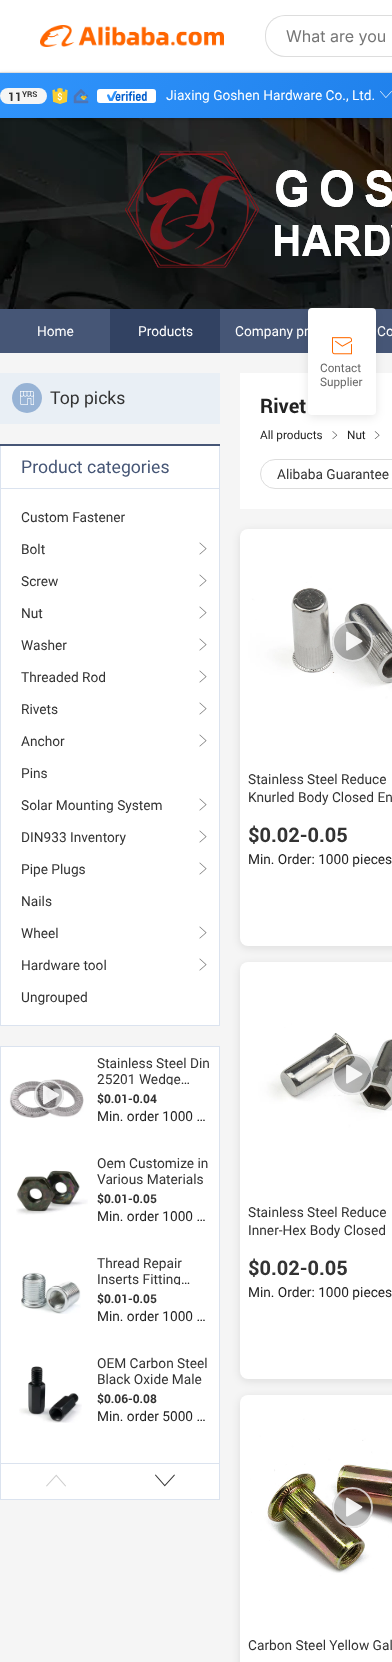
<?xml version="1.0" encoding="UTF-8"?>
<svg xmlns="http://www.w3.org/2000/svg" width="392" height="1662">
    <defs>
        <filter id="blur1" x="-50%" y="-200%" width="200%" height="500%"><feGaussianBlur stdDeviation="2"/></filter>
        <linearGradient id="g1" gradientUnits="userSpaceOnUse" x1="123" y1="-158" x2="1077" y2="349"><stop offset="0" stop-color="#3094FC"/><stop offset="1" stop-color="#005CCC"/></linearGradient>
        <clipPath id="clip1"><rect x="97" y="1055" width="114" height="30"/></clipPath>
        <clipPath id="clip2"><rect x="97" y="1255" width="114" height="30"/></clipPath>
        <filter id="blur2" x="-50%" y="-200%" width="200%" height="500%"><feGaussianBlur stdDeviation="4"/></filter>
        <filter id="blur3" x="-50%" y="-200%" width="200%" height="500%"><feGaussianBlur stdDeviation="5"/></filter>
    </defs>
    <rect width="100%" height="100%" fill="#FFFFFF"/>
    <image x="0" y="118" width="392" height="191" href="img_02.png"/>
    <rect x="0" y="74" width="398" height="45" fill="#000000" fill-opacity="0.28" filter="url(#blur1)"/>
    <rect x="0" y="72" width="392" height="1" fill="#DDDDDD"/>
    <image x="40" y="25" width="184" height="22" href="img_01.png"/>
    <rect x="265" y="15" width="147" height="42" rx="20" fill="#DDDDDD"/>
    <rect x="266" y="16" width="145" height="40" rx="19" fill="#FFFFFF"/>
    <text x="286" y="42" font-family="Inter" font-size="16" fill="#767676">What are you</text>
    <rect x="0" y="73" width="392" height="45" fill="url(#g1)"/>
    <rect x="0" y="88" width="47" height="16" rx="8" fill="#F5F5F5"/>
    <text x="8" y="101" font-family="Roboto" font-size="12" font-weight="700" fill="#333333">11</text>
    <text x="22" y="97" font-family="Roboto" font-size="8" font-weight="700" fill="#333333">YRS</text>
    <image x="52" y="88" width="16" height="16" href="img_03.png"/>
    <image x="73" y="89" width="16" height="15" href="img_04.png"/>
    <rect x="97" y="89" width="59" height="14" rx="3" fill="#FFFFFF"/>
    <image x="107" y="91" width="40" height="10" href="img_05.png"/>
    <text x="166" y="100" font-family="Roboto" font-size="14" fill="#FFFFFF">Jiaxing Goshen Hardware Co., Ltd.</text>
    <image x="380" y="91" width="12" height="7" href="img_06.png"/>
    <image x="125" y="151" width="267" height="117" href="img_07.png"/>
    <rect x="0" y="309" width="392" height="44" fill="#465676"/>
    <text x="37" y="336" font-family="Roboto" font-size="14" fill="#FFFFFF">Home</text>
    <rect x="110" y="309" width="110" height="44" fill="#324262"/>
    <text x="138" y="336" font-family="Roboto" font-size="14" fill="#FFFFFF">Products</text>
    <text x="235" y="336" font-family="Roboto" font-size="14" fill="#FFFFFF">Company pr</text>
    <text x="377" y="336" font-family="Roboto" font-size="14" fill="#FFFFFF">Co</text>
    <rect x="0" y="353" width="392" height="1309" fill="#F5F5F5"/>
    <rect x="0" y="373" width="220" height="51" fill="#E9EFF5"/>
    <circle cx="27" cy="398" r="15" fill="#97B3D5"/>
    <image x="20" y="391" width="14" height="14" href="img_08.png"/>
    <text x="50" y="404" font-family="Roboto" font-size="18" fill="#333333">Top picks</text>
    <rect x="1" y="446" width="218" height="579" fill="#FFFFFF"/>
    <rect x="0" y="444" width="220" height="2" fill="#465676"/>
    <rect x="219" y="446" width="1" height="580" fill="#DBE3EF"/>
    <rect x="0" y="1025" width="220" height="1" fill="#DBE3EF"/>
    <rect x="0" y="446" width="1" height="580" fill="#DBE3EF"/>
    <rect x="1" y="488" width="218" height="1" fill="#DBE3EF"/>
    <text x="21" y="473" font-family="Roboto" font-size="18" fill="#465676">Product categories</text>
    <text x="21" y="522" font-family="Roboto" font-size="14" fill="#333333">Custom Fastener</text>
    <text x="21" y="554" font-family="Roboto" font-size="14" fill="#333333">Bolt</text>
    <image x="199" y="542" width="8" height="13" href="img_09.png"/>
    <text x="21" y="586" font-family="Roboto" font-size="14" fill="#333333">Screw</text>
    <image x="199" y="574" width="8" height="13" href="img_09.png"/>
    <text x="21" y="618" font-family="Roboto" font-size="14" fill="#333333">Nut</text>
    <image x="199" y="606" width="8" height="13" href="img_09.png"/>
    <text x="21" y="650" font-family="Roboto" font-size="14" fill="#333333">Washer</text>
    <image x="199" y="638" width="8" height="13" href="img_09.png"/>
    <text x="21" y="682" font-family="Roboto" font-size="14" fill="#333333">Threaded Rod</text>
    <image x="199" y="670" width="8" height="13" href="img_09.png"/>
    <text x="21" y="714" font-family="Roboto" font-size="14" fill="#333333">Rivets</text>
    <image x="199" y="702" width="8" height="13" href="img_09.png"/>
    <text x="21" y="746" font-family="Roboto" font-size="14" fill="#333333">Anchor</text>
    <image x="199" y="734" width="8" height="13" href="img_09.png"/>
    <text x="21" y="778" font-family="Roboto" font-size="14" fill="#333333">Pins</text>
    <text x="21" y="810" font-family="Roboto" font-size="14" fill="#333333">Solar Mounting System</text>
    <image x="199" y="798" width="8" height="13" href="img_09.png"/>
    <text x="21" y="842" font-family="Roboto" font-size="14" fill="#333333">DIN933 Inventory</text>
    <image x="199" y="830" width="8" height="13" href="img_09.png"/>
    <text x="21" y="874" font-family="Roboto" font-size="14" fill="#333333">Pipe Plugs</text>
    <image x="199" y="862" width="8" height="13" href="img_09.png"/>
    <text x="21" y="906" font-family="Roboto" font-size="14" fill="#333333">Nails</text>
    <text x="21" y="938" font-family="Roboto" font-size="14" fill="#333333">Wheel</text>
    <image x="199" y="926" width="8" height="13" href="img_09.png"/>
    <text x="21" y="970" font-family="Roboto" font-size="14" fill="#333333">Hardware tool</text>
    <image x="199" y="958" width="8" height="13" href="img_09.png"/>
    <text x="21" y="1002" font-family="Roboto" font-size="14" fill="#333333">Ungrouped</text>
    <rect x="0.5" y="1046.5" width="219" height="453" fill="#FFFFFF" stroke="#DBE3EF"/>
    <image x="9" y="1079" width="75" height="39" href="img_10.png"/>
    <circle cx="49" cy="1095" r="15" fill="#000000" fill-opacity="0.27"/>
    <circle cx="49" cy="1095" r="14" fill="none" stroke="#FFFFFF" stroke-opacity="0.72" stroke-width="2"/>
    <image x="42" y="1085" width="18" height="20" href="img_11.png"/>
    <text x="97" y="1068" font-family="Roboto" font-size="14" fill="#333333">Stainless Steel Din</text>
    <g clip-path="url(#clip1)">
        <text x="97" y="1084" font-family="Roboto" font-size="14" fill="#333333">25201 Wedge…</text>
    </g>
    <text x="97" y="1103" font-family="Roboto" font-size="12" font-weight="700" fill="#333333">$0.01-0.04</text>
    <text x="97" y="1121" font-family="Roboto" font-size="14" fill="#222222">Min. order 1000 …</text>
    <image x="16" y="1170" width="72" height="45" href="img_12.png"/>
    <text font-family="Roboto" font-size="14" fill="#333333">
        <tspan x="97" y="1168">Oem Customize in</tspan>
        <tspan x="97" y="1184">Various Materials</tspan>
    </text>
    <text x="97" y="1203" font-family="Roboto" font-size="12" font-weight="700" fill="#333333">$0.01-0.05</text>
    <text x="97" y="1221" font-family="Roboto" font-size="14" fill="#222222">Min. order 1000 …</text>
    <image x="21" y="1272" width="60" height="42" href="img_13.png"/>
    <text x="97" y="1268" font-family="Roboto" font-size="14" fill="#333333">Thread Repair</text>
    <g clip-path="url(#clip2)">
        <text x="97" y="1284" font-family="Roboto" font-size="14" fill="#333333">Inserts Fitting…</text>
    </g>
    <text x="97" y="1303" font-family="Roboto" font-size="12" font-weight="700" fill="#333333">$0.01-0.05</text>
    <text x="97" y="1321" font-family="Roboto" font-size="14" fill="#222222">Min. order 1000 …</text>
    <image x="19" y="1366" width="63" height="57" href="img_14.png"/>
    <text font-family="Roboto" font-size="14" fill="#333333">
        <tspan x="97" y="1368">OEM Carbon Steel</tspan>
        <tspan x="97" y="1384">Black Oxide Male</tspan>
    </text>
    <text x="97" y="1403" font-family="Roboto" font-size="12" font-weight="700" fill="#333333">$0.06-0.08</text>
    <text x="97" y="1421" font-family="Roboto" font-size="14" fill="#222222">Min. order 5000 …</text>
    <rect x="1" y="1463" width="218" height="1" fill="#DBE3EF"/>
    <image x="46" y="1474" width="20" height="13" href="img_15.png"/>
    <image x="155" y="1474" width="20" height="13" href="img_16.png"/>
    <rect x="240" y="373" width="152" height="136" fill="#FFFFFF"/>
    <text x="260" y="413" font-family="Roboto" font-size="20" font-weight="700" fill="#222222">Rivet</text>
    <text x="260" y="439" font-family="Roboto" font-size="12" fill="#222222">All products</text>
    <image x="332" y="431" width="6" height="9" href="img_17.png"/>
    <text x="347" y="439" font-family="Roboto" font-size="12" fill="#222222">Nut</text>
    <image x="374" y="431" width="6" height="8" href="img_18.png"/>
    <rect x="260.5" y="459.5" width="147" height="29" rx="14.5" fill="none" stroke="#DDDDDD"/>
    <text x="277" y="479" font-family="Roboto" font-size="14" fill="#333333">Alibaba Guarantee</text>
    <rect x="240" y="531" width="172" height="417" rx="8" fill="#000000" fill-opacity="0.1" filter="url(#blur2)"/>
    <rect x="240" y="529" width="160" height="417" rx="8" fill="#FFFFFF"/>
    <image x="248" y="537" width="144" height="209" href="img_19.png"/>
    <circle cx="352.5" cy="641.5" r="20.5" fill="#000000" fill-opacity="0.27"/>
    <circle cx="352.5" cy="641.5" r="19.5" fill="none" stroke="#FFFFFF" stroke-opacity="0.72" stroke-width="2"/>
    <image x="346" y="631" width="17" height="20" href="img_20.png"/>
    <text font-family="Roboto" font-size="14" fill="#333333">
        <tspan x="248" y="784">Stainless Steel Reduce</tspan>
        <tspan x="248" y="802">Knurled Body Closed En</tspan>
    </text>
    <text x="248" y="842" font-family="Roboto" font-size="20" font-weight="700" fill="#333333">$0.02-0.05</text>
    <text x="248" y="864" font-family="Roboto" font-size="14" fill="#222222">Min. Order: 1000 pieces</text>
    <rect x="240" y="964" width="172" height="417" rx="8" fill="#000000" fill-opacity="0.1" filter="url(#blur2)"/>
    <rect x="240" y="962" width="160" height="417" rx="8" fill="#FFFFFF"/>
    <image x="248" y="970" width="144" height="209" href="img_21.png"/>
    <circle cx="352.5" cy="1074.5" r="20.5" fill="#000000" fill-opacity="0.27"/>
    <circle cx="352.5" cy="1074.5" r="19.5" fill="none" stroke="#FFFFFF" stroke-opacity="0.72" stroke-width="2"/>
    <image x="346" y="1064" width="17" height="20" href="img_22.png"/>
    <text font-family="Roboto" font-size="14" fill="#333333">
        <tspan x="248" y="1217">Stainless Steel Reduce</tspan>
        <tspan x="248" y="1235">Inner-Hex Body Closed</tspan>
    </text>
    <text x="248" y="1275" font-family="Roboto" font-size="20" font-weight="700" fill="#333333">$0.02-0.05</text>
    <text x="248" y="1297" font-family="Roboto" font-size="14" fill="#222222">Min. Order: 1000 pieces</text>
    <rect x="240" y="1397" width="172" height="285" rx="8" fill="#000000" fill-opacity="0.1" filter="url(#blur2)"/>
    <rect x="240" y="1395" width="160" height="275" rx="8" fill="#FFFFFF"/>
    <image x="248" y="1403" width="144" height="209" href="img_23.png"/>
    <circle cx="352.5" cy="1507.5" r="20.5" fill="#000000" fill-opacity="0.27"/>
    <circle cx="352.5" cy="1507.5" r="19.5" fill="none" stroke="#FFFFFF" stroke-opacity="0.72" stroke-width="2"/>
    <image x="346" y="1497" width="17" height="20" href="img_24.png"/>
    <text x="248" y="1650" font-family="Roboto" font-size="14" fill="#333333">Carbon Steel Yellow Gal</text>
    <rect x="308" y="310" width="68" height="107" rx="4" fill="#000000" fill-opacity="0.1" filter="url(#blur3)"/>
    <rect x="308" y="308" width="68" height="107" rx="4" fill="#FFFFFF"/>
    <image x="332" y="337" width="20" height="18" href="img_25.png"/>
    <text font-family="Roboto" font-size="12" fill="#666666">
        <tspan x="320" y="372">Contact</tspan>
        <tspan x="320" y="386">Supplier</tspan>
    </text>
</svg>
